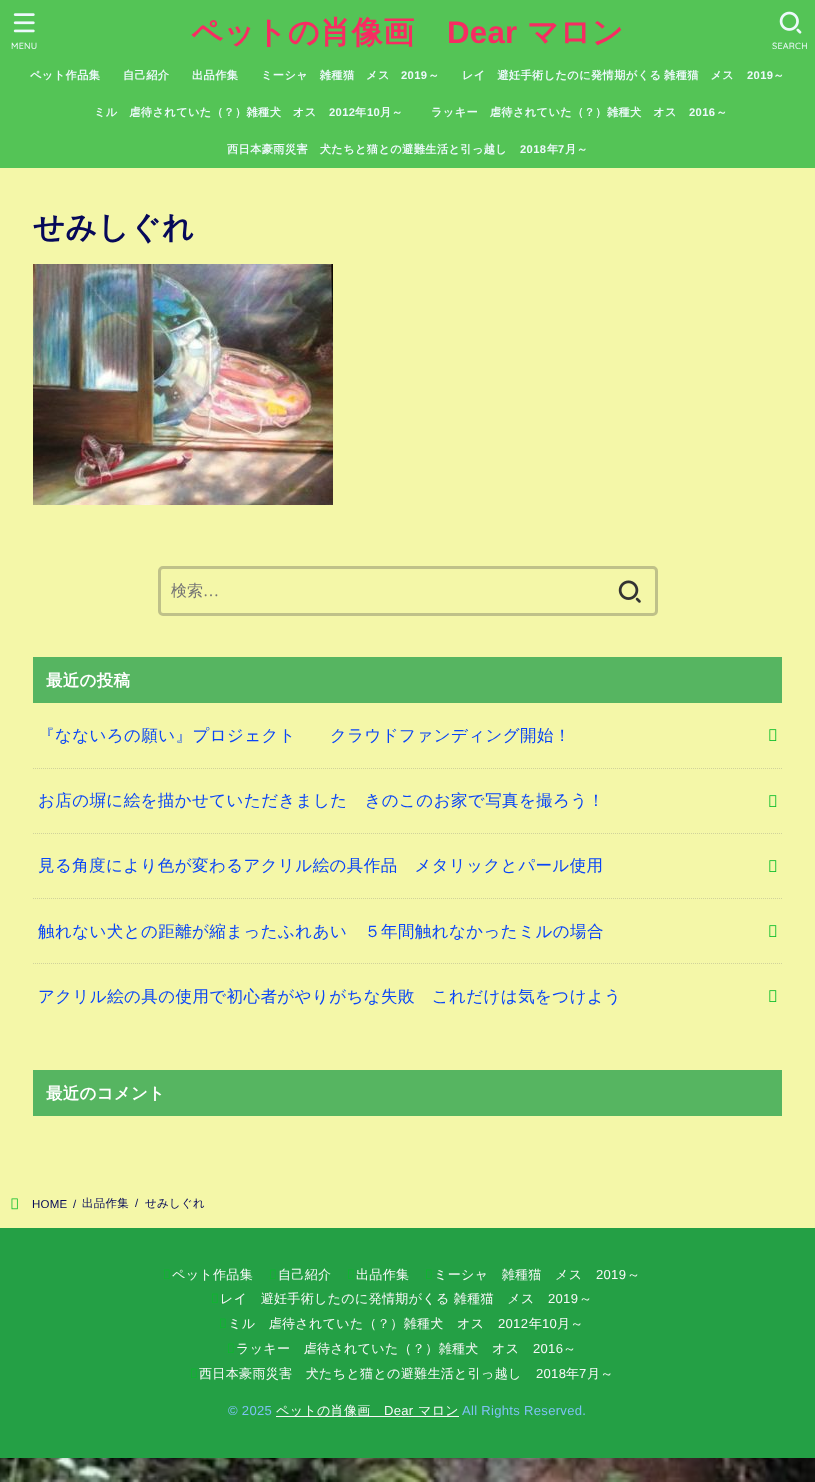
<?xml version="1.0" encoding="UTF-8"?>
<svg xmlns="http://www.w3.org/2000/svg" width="815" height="1482">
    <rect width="100%" height="100%" fill="#FFFFFF"/>
    <image x="0" y="1458" width="815" height="24" href="img_01.png"/>
    <rect x="0" y="0" width="815" height="168" fill="#54C456"/>
    <image x="13" y="13" width="22" height="20" href="img_02.png"/>
    <text x="11" y="49" font-family="Quicksand" font-size="9" font-weight="500" letter-spacing="0.25" fill="#EDF9FC">MENU</text>
    <text x="191" y="43" font-family="WenQuanYi Zen Hei" font-size="31.25" font-weight="700" letter-spacing="0.25" fill="#F72C62">ペットの肖像画</text>
    <text x="447" y="43" font-family="Liberation Sans" font-size="31.25" font-weight="700" letter-spacing="0.25" fill="#F72C62">Dear</text>
    <text x="527" y="43" font-family="WenQuanYi Zen Hei" font-size="31.25" font-weight="700" letter-spacing="0.25" fill="#F72C62">マロン</text>
    <image x="779" y="11" width="23" height="23" href="img_03.png"/>
    <text x="772" y="49" font-family="Quicksand" font-size="9" font-weight="500" letter-spacing="0.25" fill="#EDF9FC">SEARCH</text>
    <text x="30" y="79" font-family="WenQuanYi Zen Hei" font-size="11.2" font-weight="700" letter-spacing="0.4" fill="#EDF9FC">ペット作品集</text>
    <text x="123" y="79" font-family="WenQuanYi Zen Hei" font-size="11.2" font-weight="700" letter-spacing="0.4" fill="#EDF9FC">自己紹介</text>
    <text x="192" y="79" font-family="WenQuanYi Zen Hei" font-size="11.2" font-weight="700" letter-spacing="0.4" fill="#EDF9FC">出品作集</text>
    <text x="261" y="79" font-family="WenQuanYi Zen Hei" font-size="11.2" font-weight="700" letter-spacing="0.4" fill="#EDF9FC">ミーシャ　雑種猫　メス</text>
    <text x="401" y="79" font-family="Liberation Sans" font-size="11.2" font-weight="700" letter-spacing="0.4" fill="#EDF9FC">2019</text>
    <text x="428" y="79" font-family="WenQuanYi Zen Hei" font-size="11.2" font-weight="700" letter-spacing="0.4" fill="#EDF9FC">～</text>
    <text x="462" y="79" word-spacing="-1" font-family="WenQuanYi Zen Hei" font-size="11.2" font-weight="700" letter-spacing="0.4" fill="#EDF9FC">レイ　避妊手術したのに発情期がくる 雑種猫　メス</text>
    <text x="747" y="79" font-family="Liberation Sans" font-size="11.2" font-weight="700" letter-spacing="0.4" fill="#EDF9FC">2019</text>
    <text x="773" y="79" font-family="WenQuanYi Zen Hei" font-size="11.2" font-weight="700" letter-spacing="0.4" fill="#EDF9FC">～</text>
    <text x="94" y="116" font-family="WenQuanYi Zen Hei" font-size="11.2" font-weight="700" letter-spacing="0.4" fill="#EDF9FC">ミル　虐待されていた（？）雑種犬　オス</text>
    <text x="329" y="116" font-family="Liberation Sans" font-size="11.2" font-weight="700" letter-spacing="0.4" fill="#EDF9FC">2012</text>
    <text x="355" y="116" font-family="WenQuanYi Zen Hei" font-size="11.2" font-weight="700" letter-spacing="0.4" fill="#EDF9FC">年</text>
    <text x="367" y="116" font-family="Liberation Sans" font-size="11.2" font-weight="700" letter-spacing="0.4" fill="#EDF9FC">10</text>
    <text x="380" y="116" font-family="WenQuanYi Zen Hei" font-size="11.2" font-weight="700" letter-spacing="0.4" fill="#EDF9FC">月～</text>
    <text x="431" y="116" font-family="WenQuanYi Zen Hei" font-size="11.2" font-weight="700" letter-spacing="0.4" fill="#EDF9FC">ラッキー　虐待されていた（？）雑種犬　オス</text>
    <text x="689" y="116" font-family="Liberation Sans" font-size="11.2" font-weight="700" letter-spacing="0.4" fill="#EDF9FC">2016</text>
    <text x="716" y="116" font-family="WenQuanYi Zen Hei" font-size="11.2" font-weight="700" letter-spacing="0.4" fill="#EDF9FC">～</text>
    <text x="227" y="153" font-family="WenQuanYi Zen Hei" font-size="11.2" font-weight="700" letter-spacing="0.4" fill="#EDF9FC">西日本豪雨災害　犬たちと猫との避難生活と引っ越し</text>
    <text x="520" y="153" font-family="Liberation Sans" font-size="11.2" font-weight="700" letter-spacing="0.4" fill="#EDF9FC">2018</text>
    <text x="547" y="153" font-family="WenQuanYi Zen Hei" font-size="11.2" font-weight="700" letter-spacing="0.4" fill="#EDF9FC">年</text>
    <text x="558" y="153" font-family="Liberation Sans" font-size="11.2" font-weight="700" letter-spacing="0.4" fill="#EDF9FC">7</text>
    <text x="565" y="153" font-family="WenQuanYi Zen Hei" font-size="11.2" font-weight="700" letter-spacing="0.4" fill="#EDF9FC">月～</text>
    <rect x="0" y="168" width="815" height="1060" fill="#F4F7A8"/>
    <text x="33" y="238" font-family="WenQuanYi Zen Hei" font-size="31.25" font-weight="700" letter-spacing="0.25" fill="#060959">せみしぐれ</text>
    <image x="33" y="264" width="300" height="241" href="img_04.png"/>
    <rect x="159.5" y="567.5" width="497" height="47" rx="3.5" fill="none" stroke="#BFC189" stroke-width="3"/>
    <text x="171" y="596" font-family="WenQuanYi Zen Hei" font-size="16" font-weight="500" fill="#757575">検索</text>
    <text x="203" y="596" font-family="Liberation Serif" font-size="16" fill="#757575">…</text>
    <image x="618" y="580" width="23" height="23" href="img_05.png"/>
    <rect x="33" y="657" width="749" height="46" fill="#56B561"/>
    <text x="46" y="686" font-family="WenQuanYi Zen Hei" font-size="16.5" font-weight="700" letter-spacing="0.25" fill="#FFFFFF">最近の投稿</text>
    <path d="M 33 768.5 H 782" fill="none" stroke="#D0D29B" stroke-dasharray="1 1"/>
    <text x="38" y="741" font-family="WenQuanYi Zen Hei" font-size="16.5" font-weight="500" letter-spacing="0.4" fill="#0945F7">『なないろの願い』プロジェクト　　クラウドファンディング開始！</text>
    <image x="769" y="729" width="8" height="12" href="img_06.png"/>
    <path d="M 33 833.5 H 782" fill="none" stroke="#D0D29B" stroke-dasharray="1 1"/>
    <text x="38" y="806" font-family="WenQuanYi Zen Hei" font-size="16.5" font-weight="500" letter-spacing="0.4" fill="#0945F7">お店の塀に絵を描かせていただきました　きのこのお家で写真を撮ろう！</text>
    <image x="769" y="795" width="8" height="12" href="img_06.png"/>
    <path d="M 33 898.5 H 782" fill="none" stroke="#D0D29B" stroke-dasharray="1 1"/>
    <text x="38" y="871" font-family="WenQuanYi Zen Hei" font-size="16.5" font-weight="500" letter-spacing="0.4" fill="#0945F7">見る角度により色が変わるアクリル絵の具作品　メタリックとパール使用</text>
    <image x="769" y="860" width="8" height="12" href="img_06.png"/>
    <path d="M 33 963.5 H 782" fill="none" stroke="#D0D29B" stroke-dasharray="1 1"/>
    <text x="38" y="937" font-family="WenQuanYi Zen Hei" font-size="16.5" font-weight="500" letter-spacing="0.4" fill="#0945F7">触れない犬との距離が縮まったふれあい　５年間触れなかったミルの場合</text>
    <image x="769" y="925" width="8" height="12" href="img_06.png"/>
    <text x="38" y="1002" font-family="WenQuanYi Zen Hei" font-size="16.5" font-weight="500" letter-spacing="0.4" fill="#0945F7">アクリル絵の具の使用で初心者がやりがちな失敗　これだけは気をつけよう</text>
    <image x="769" y="990" width="8" height="12" href="img_06.png"/>
    <rect x="33" y="1070" width="749" height="46" fill="#56B561"/>
    <text x="46" y="1099" font-family="WenQuanYi Zen Hei" font-size="16.5" font-weight="700" letter-spacing="0.25" fill="#FFFFFF">最近のコメント</text>
    <image x="11" y="1198" width="7" height="12" href="img_07.png"/>
    <text x="32" y="1208" font-family="Liberation Sans" font-size="11.5" letter-spacing="0.25" fill="#060959">HOME</text>
    <text x="73" y="1208" font-family="Liberation Sans" font-size="11.5" letter-spacing="0.25" fill="#060959">/</text>
    <text x="82" y="1207" font-family="WenQuanYi Zen Hei" font-size="11.5" font-weight="500" letter-spacing="0.25" fill="#060959">出品作集</text>
    <text x="135" y="1207" font-family="Liberation Sans" font-size="11.5" letter-spacing="0.25" fill="#060959">/</text>
    <text x="145" y="1207" font-family="WenQuanYi Zen Hei" font-size="11.5" font-weight="500" letter-spacing="0.25" fill="#060959">せみしぐれ</text>
    <rect x="0" y="1228" width="815" height="230" fill="#24A045"/>
    <image x="164" y="1269" width="6" height="10" href="img_08.png"/>
    <text x="172" y="1279" font-family="WenQuanYi Zen Hei" font-size="13.05" font-weight="500" letter-spacing="0.3" fill="#F7F7F7">ペット作品集</text>
    <image x="270" y="1269" width="6" height="10" href="img_08.png"/>
    <text x="278" y="1279" font-family="WenQuanYi Zen Hei" font-size="13.05" font-weight="500" letter-spacing="0.3" fill="#F7F7F7">自己紹介</text>
    <image x="348" y="1269" width="6" height="10" href="img_08.png"/>
    <text x="356" y="1279" font-family="WenQuanYi Zen Hei" font-size="13.05" font-weight="500" letter-spacing="0.3" fill="#F7F7F7">出品作集</text>
    <image x="426" y="1269" width="6" height="10" href="img_08.png"/>
    <text x="434" y="1279" font-family="WenQuanYi Zen Hei" font-size="13.05" font-weight="500" letter-spacing="0.3" fill="#F7F7F7">ミーシャ　雑種猫　メス</text>
    <text x="596" y="1279" font-family="Liberation Sans" font-size="13.05" letter-spacing="0.3" fill="#F7F7F7">2019</text>
    <text x="627" y="1279" font-family="WenQuanYi Zen Hei" font-size="13.05" font-weight="500" letter-spacing="0.3" fill="#F7F7F7">～</text>
    <image x="212" y="1293" width="6" height="10" href="img_08.png"/>
    <text x="220" y="1303" font-family="WenQuanYi Zen Hei" font-size="13.05" font-weight="500" letter-spacing="0.3" fill="#F7F7F7">レイ　避妊手術したのに発情期がくる 雑種猫　メス</text>
    <text x="548" y="1303" font-family="Liberation Sans" font-size="13.05" letter-spacing="0.3" fill="#F7F7F7">2019</text>
    <text x="579" y="1303" font-family="WenQuanYi Zen Hei" font-size="13.05" font-weight="500" letter-spacing="0.3" fill="#F7F7F7">～</text>
    <image x="220" y="1318" width="6" height="10" href="img_08.png"/>
    <text x="228" y="1328" font-family="WenQuanYi Zen Hei" font-size="13.05" font-weight="500" letter-spacing="0.3" fill="#F7F7F7">ミル　虐待されていた（？）雑種犬　オス</text>
    <text x="498" y="1328" font-family="Liberation Sans" font-size="13.05" letter-spacing="0.3" fill="#F7F7F7">2012</text>
    <text x="529" y="1328" font-family="WenQuanYi Zen Hei" font-size="13.05" font-weight="500" letter-spacing="0.3" fill="#F7F7F7">年</text>
    <text x="542" y="1328" font-family="Liberation Sans" font-size="13.05" letter-spacing="0.3" fill="#F7F7F7">10</text>
    <text x="557" y="1328" font-family="WenQuanYi Zen Hei" font-size="13.05" font-weight="500" letter-spacing="0.3" fill="#F7F7F7">月～</text>
    <image x="228" y="1343" width="6" height="10" href="img_08.png"/>
    <text x="236" y="1353" font-family="WenQuanYi Zen Hei" font-size="13.05" font-weight="500" letter-spacing="0.3" fill="#F7F7F7">ラッキー　虐待されていた（？）雑種犬　オス</text>
    <text x="533" y="1353" font-family="Liberation Sans" font-size="13.05" letter-spacing="0.3" fill="#F7F7F7">2016</text>
    <text x="563" y="1353" font-family="WenQuanYi Zen Hei" font-size="13.05" font-weight="500" letter-spacing="0.3" fill="#F7F7F7">～</text>
    <image x="191" y="1368" width="6" height="10" href="img_08.png"/>
    <text x="199" y="1378" font-family="WenQuanYi Zen Hei" font-size="13.05" font-weight="500" letter-spacing="0.3" fill="#F7F7F7">西日本豪雨災害　犬たちと猫との避難生活と引っ越し</text>
    <text x="536" y="1378" font-family="Liberation Sans" font-size="13.05" letter-spacing="0.3" fill="#F7F7F7">2018</text>
    <text x="566" y="1378" font-family="WenQuanYi Zen Hei" font-size="13.05" font-weight="500" letter-spacing="0.3" fill="#F7F7F7">年</text>
    <text x="579" y="1378" font-family="Liberation Sans" font-size="13.05" letter-spacing="0.3" fill="#F7F7F7">7</text>
    <text x="587" y="1378" font-family="WenQuanYi Zen Hei" font-size="13.05" font-weight="500" letter-spacing="0.3" fill="#F7F7F7">月～</text>
    <text x="228" y="1415" font-family="Liberation Sans" font-size="13.05" letter-spacing="0.3" fill="#7FC1F4">© 2025</text>
    <rect x="276" y="1416" width="183" height="1" fill="#F7F7F7"/>
    <text x="276" y="1415" font-family="WenQuanYi Zen Hei" font-size="13.05" font-weight="500" letter-spacing="0.3" fill="#F7F7F7">ペットの肖像画</text>
    <text x="384" y="1415" font-family="Liberation Sans" font-size="13.05" letter-spacing="0.3" fill="#F7F7F7">Dear</text>
    <text x="418" y="1415" font-family="WenQuanYi Zen Hei" font-size="13.05" font-weight="500" letter-spacing="0.3" fill="#F7F7F7">マロン</text>
    <text x="462" y="1415" font-family="Liberation Sans" font-size="13.05" letter-spacing="0.3" fill="#7FC1F4">All Rights Reserved.</text>
</svg>
